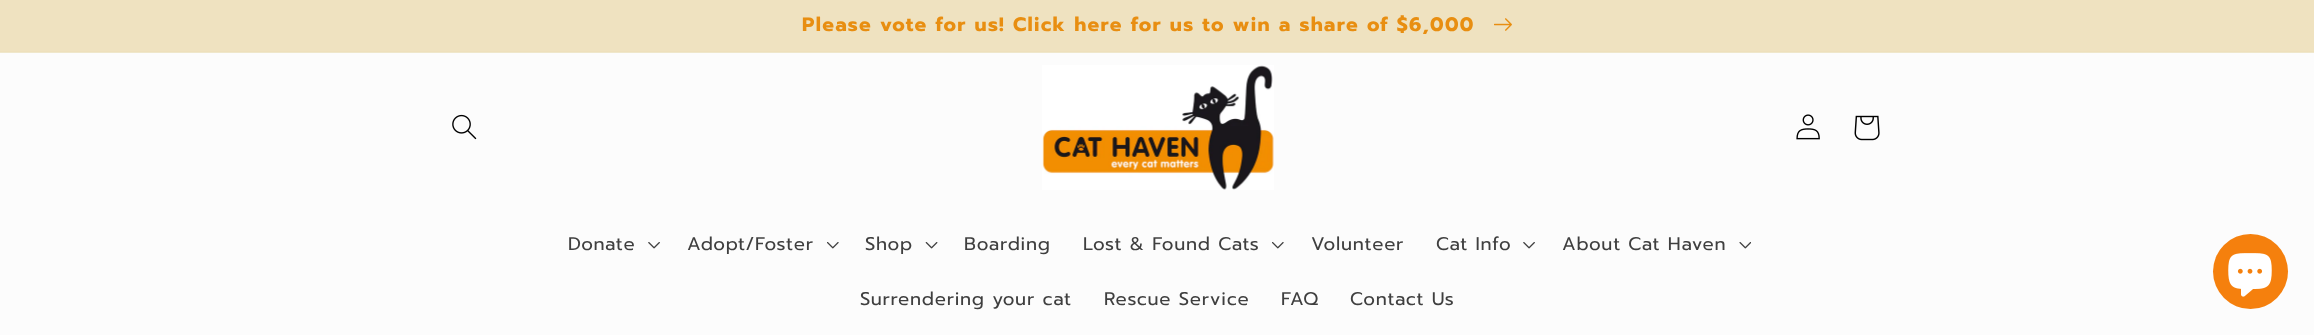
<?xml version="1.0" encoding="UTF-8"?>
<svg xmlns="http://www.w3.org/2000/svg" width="2314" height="335">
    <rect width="100%" height="100%" fill="#FCFCFC"/>
    <rect x="0" y="52" width="2314" height="1" fill="#EFE7CB"/>
    <rect x="0" y="51" width="2314" height="1" fill="#EEE0BC"/>
    <rect x="0" y="0" width="2314" height="51" fill="#EFE2C0"/>
    <text x="802" y="31" font-family="Prompt" font-size="19.5" font-weight="700" letter-spacing="1.3" fill="#E88E11">Please vote for us! Click here for us to win a share of $6,000</text>
    <image x="1494" y="18" width="18" height="13" href="img_01.png"/>
    <image x="452" y="114" width="25" height="26" href="img_02.png"/>
    <image x="1042" y="65" width="232" height="125" href="img_03.png"/>
    <image x="1796" y="114" width="24" height="26" href="img_04.png"/>
    <image x="1854" y="115" width="26" height="26" href="img_05.png"/>
    <text x="568" y="250" font-family="Prompt" font-size="18.4" letter-spacing="0.75" fill="#3F3F3F">Donate</text>
    <image x="648" y="242" width="12" height="7" href="img_06.png"/>
    <text x="687" y="250" font-family="Prompt" font-size="18.4" letter-spacing="0.75" fill="#3F3F3F">Adopt/Foster</text>
    <image x="827" y="242" width="12" height="7" href="img_07.png"/>
    <text x="865" y="250" font-family="Prompt" font-size="18.4" letter-spacing="0.75" fill="#3F3F3F">Shop</text>
    <image x="925" y="242" width="13" height="7" href="img_08.png"/>
    <text x="964" y="250" font-family="Prompt" font-size="18.4" letter-spacing="0.75" fill="#3F3F3F">Boarding</text>
    <text x="1083" y="250" font-family="Prompt" font-size="18.4" letter-spacing="0.75" fill="#3F3F3F">Lost &amp; Found Cats</text>
    <image x="1272" y="242" width="12" height="7" href="img_07.png"/>
    <text x="1311" y="250" font-family="Prompt" font-size="18.4" letter-spacing="0.75" fill="#3F3F3F">Volunteer</text>
    <text x="1436" y="250" font-family="Prompt" font-size="18.4" letter-spacing="0.75" fill="#3F3F3F">Cat Info</text>
    <image x="1523" y="242" width="12" height="7" href="img_06.png"/>
    <text x="1562" y="250" font-family="Prompt" font-size="18.4" letter-spacing="0.75" fill="#3F3F3F">About Cat Haven</text>
    <image x="1739" y="242" width="12" height="7" href="img_09.png"/>
    <text x="860" y="305" font-family="Prompt" font-size="18.4" letter-spacing="0.75" fill="#3F3F3F">Surrendering your cat</text>
    <text x="1104" y="305" font-family="Prompt" font-size="18.4" letter-spacing="0.75" fill="#3F3F3F">Rescue Service</text>
    <text x="1281" y="305" font-family="Prompt" font-size="18.4" letter-spacing="0.75" fill="#3F3F3F">FAQ</text>
    <text x="1350" y="305" font-family="Prompt" font-size="18.4" letter-spacing="0.75" fill="#3F3F3F">Contact Us</text>
    <circle cx="2250.5" cy="271.5" r="37.5" fill="#F5800D"/>
    <image x="2228" y="253" width="44" height="44" href="img_10.png"/>
</svg>
